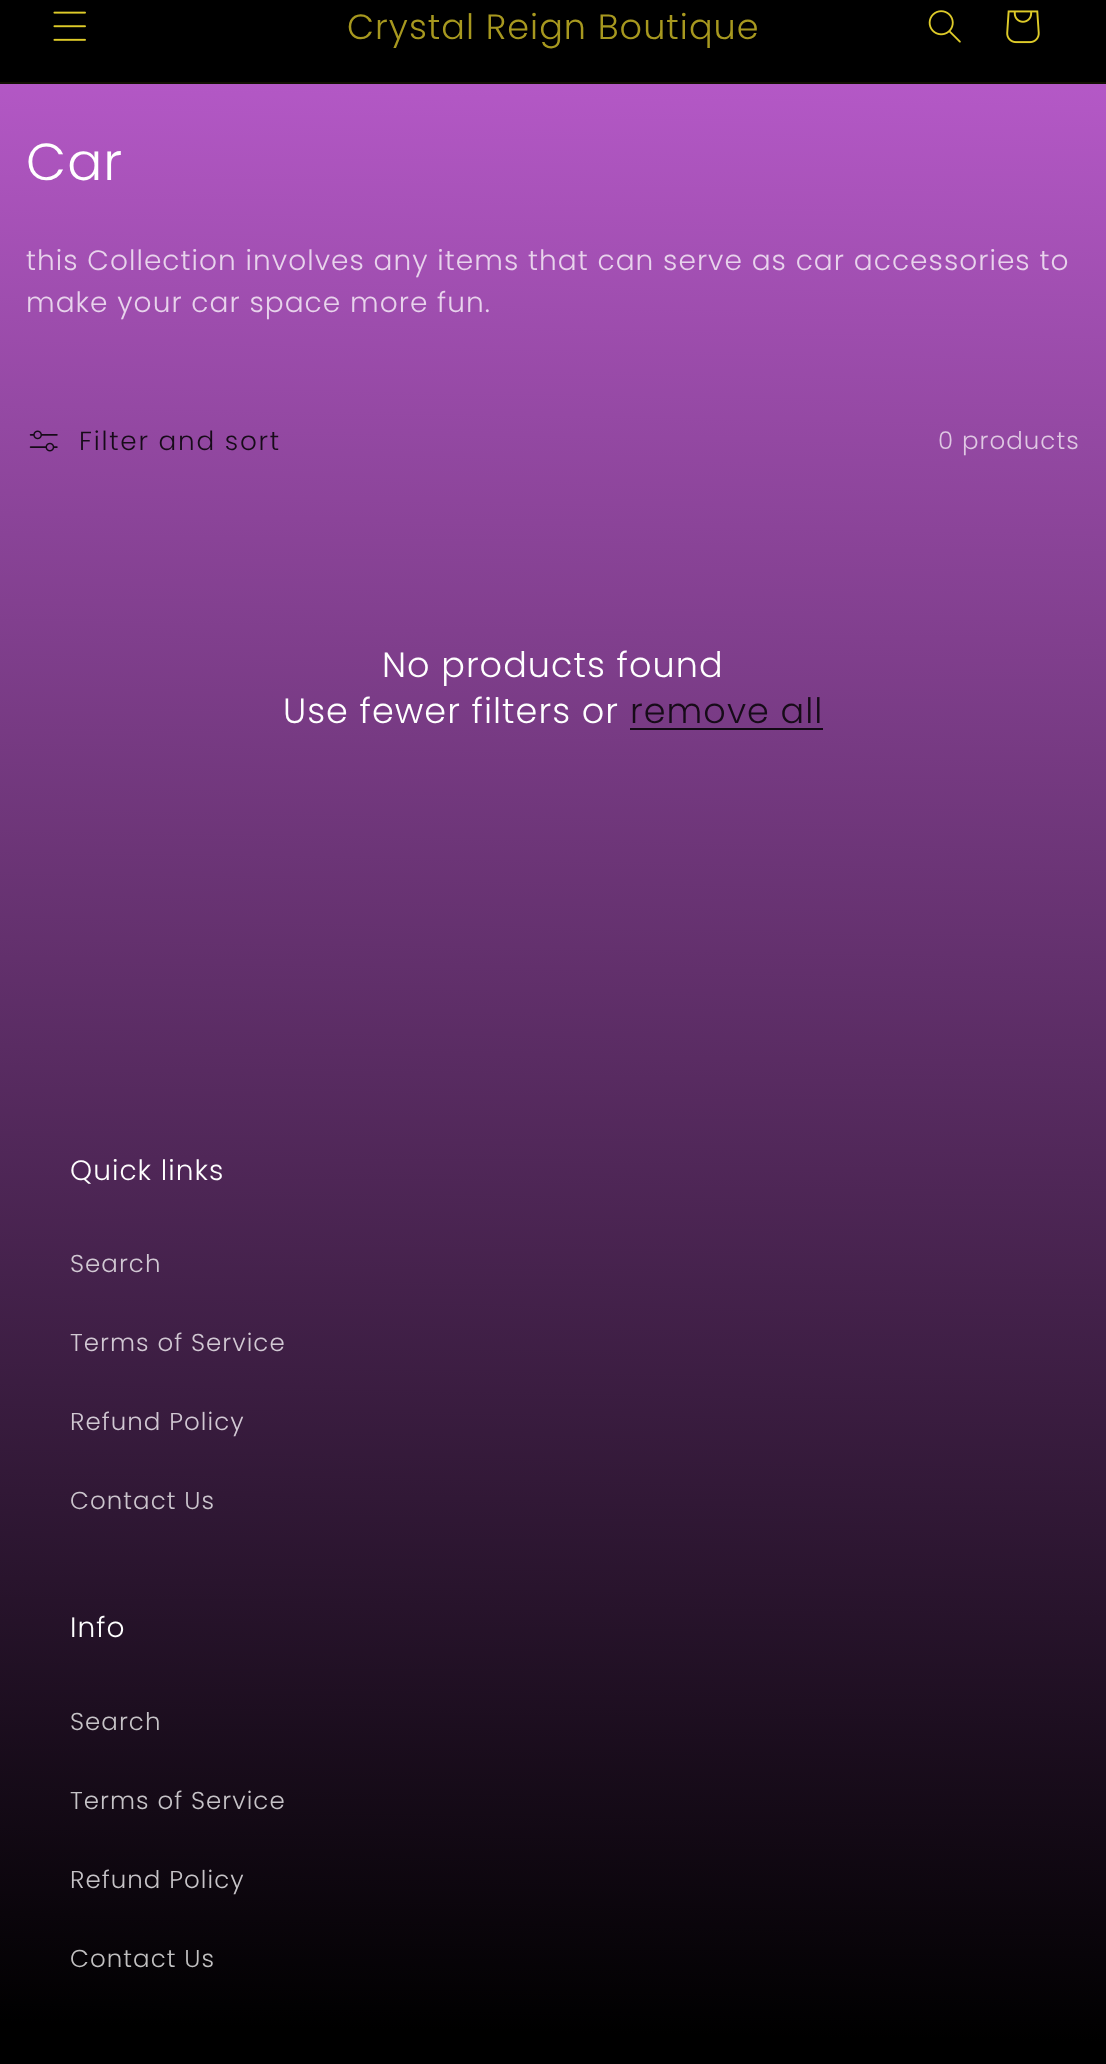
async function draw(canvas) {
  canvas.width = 1106
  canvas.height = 2064
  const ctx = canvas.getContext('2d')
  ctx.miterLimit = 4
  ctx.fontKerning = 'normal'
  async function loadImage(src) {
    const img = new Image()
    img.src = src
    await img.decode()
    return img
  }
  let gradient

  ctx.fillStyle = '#fff'
  ctx.fillRect(0, 0, 1106, 2064)
  gradient = ctx.createLinearGradient(571, -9, 535, 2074)
  gradient.addColorStop(0, '#bc5ccf')
  gradient.addColorStop(0.98, '#000')
  ctx.fillStyle = gradient
  ctx.fillRect(0, 84, 1106, 1980)
  ctx.fillStyle = '#000'
  ctx.fillRect(0, 0, 1106, 82)
  ctx.fillStyle = '#121003'
  ctx.fillRect(0, 82, 1106, 2)
  ctx.drawImage(await loadImage('image0.png'), 53, 11, 33, 30)
  ctx.letterSpacing = '1.05px'
  ctx.font = '300 35px Poppins'
  ctx.fillStyle = '#a7981f'
  ctx.fillText('Crystal Reign Boutique', 347, 39)
  ctx.drawImage(await loadImage('image1.png'), 928, 10, 33, 33)
  ctx.drawImage(await loadImage('image2.png'), 1006, 10, 34, 34)
  ctx.font = '300 52px Poppins'
  ctx.fillStyle = '#fff'
  ctx.fillText('Car', 26, 180)
  ctx.font = '300 28px Poppins'
  ctx.fillStyle = '#e8d3ec'
  ctx.fillText('this Collection involves any items that can serve as car accessories to', 26, 270)
  ctx.fillText('make your car space more fun.', 26, 312)
  ctx.drawImage(await loadImage('image3.png'), 29, 430, 29, 22)
  ctx.letterSpacing = '1.75px'
  ctx.font = '300 26.25px Poppins'
  ctx.fillStyle = '#160b18'
  ctx.fillText('Filter and sort', 79, 450)
  ctx.letterSpacing = '1.05px'
  ctx.font = '300 24.5px Poppins'
  ctx.fillStyle = '#dfc8e3'
  ctx.fillText('0 products', 938, 449)
  ctx.font = '300 35px Poppins'
  ctx.fillStyle = '#fff'
  ctx.fillText('No products found', 382, 677)
  ctx.fillText('Use fewer filters or', 283, 723)
  ctx.fillStyle = '#160b18'
  ctx.fillText('remove all', 630, 723)
  ctx.fillStyle = '#120914'
  ctx.fillRect(630, 728, 193, 2)
  ctx.font = '300 28px Poppins'
  ctx.fillStyle = '#fff'
  ctx.fillText('Quick links', 70, 1180)
  ctx.font = '300 24.5px Poppins'
  ctx.fillStyle = '#d1c8d3'
  ctx.fillText('Search', 70, 1272)
  ctx.fillText('Terms of Service', 70, 1351)
  ctx.fillText('Refund Policy', 70, 1430)
  ctx.fillStyle = '#cbc5cd'
  ctx.fillText('Contact Us', 70, 1509)
  ctx.font = '300 28px Poppins'
  ctx.fillStyle = '#fff'
  ctx.fillText('Info', 70, 1637)
  ctx.font = '300 24.5px Poppins'
  ctx.fillStyle = '#c6c3c7'
  ctx.fillText('Search', 70, 1730)
  ctx.fillText('Terms of Service', 70, 1809)
  ctx.fillText('Refund Policy', 70, 1888)
  ctx.fillStyle = '#c1c0c1'
  ctx.fillText('Contact Us', 70, 1967)
}

draw(document.querySelector('canvas'))
